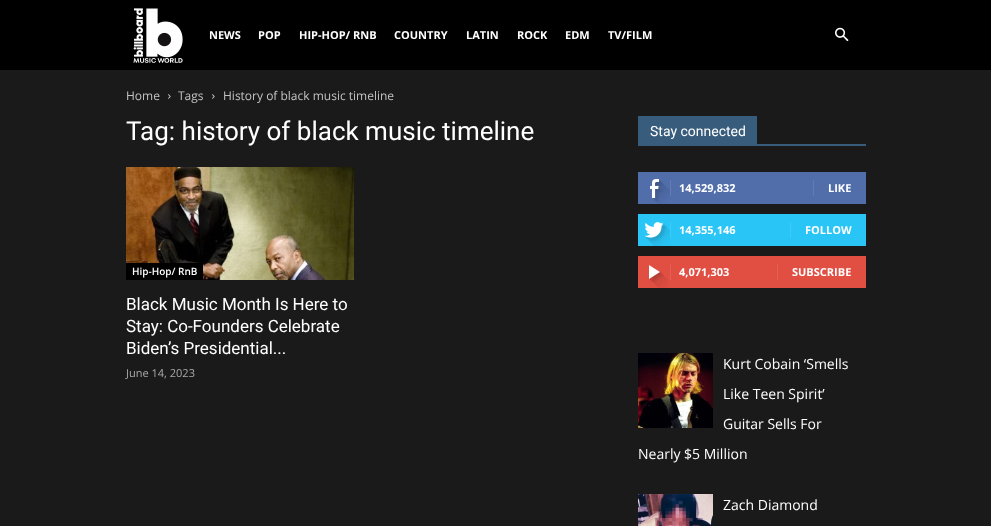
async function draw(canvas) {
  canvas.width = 991
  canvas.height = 526
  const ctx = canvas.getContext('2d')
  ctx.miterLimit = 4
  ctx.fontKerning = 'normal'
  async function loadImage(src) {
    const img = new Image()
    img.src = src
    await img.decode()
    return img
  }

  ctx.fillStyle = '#1a1a1a'
  ctx.fillRect(0, 0, 991, 526)
  ctx.fillStyle = '#000'
  ctx.fillRect(0, 0, 991, 70)
  ctx.drawImage(await loadImage('image0.png'), 133, 8, 50, 55)
  ctx.font = 'bold 11px Open Sans'
  ctx.fillStyle = '#fff'
  ctx.fillText('NEWS', 209, 39)
  ctx.fillText('POP', 258, 39)
  ctx.fillText('HIP-HOP/ RNB', 299, 39)
  ctx.fillText('COUNTRY', 394, 39)
  ctx.fillText('LATIN', 466, 39)
  ctx.fillText('ROCK', 517, 39)
  ctx.fillText('EDM', 565, 39)
  ctx.fillText('TV/FILM', 608, 39)
  ctx.drawImage(await loadImage('image1.png'), 835, 27, 14, 15)
  ctx.font = '12px Open Sans'
  ctx.fillStyle = '#c3c3c3'
  ctx.fillText('Home', 126, 100)
  ctx.drawImage(await loadImage('image2.png'), 168, 94, 3, 5)
  ctx.fillText('Tags', 178, 100)
  ctx.drawImage(await loadImage('image2.png'), 212, 94, 3, 5)
  ctx.fillText('History of black music timeline', 223, 100)
  ctx.font = '26px Roboto'
  ctx.fillStyle = '#fff'
  ctx.fillText('Tag: history of black music timeline', 126, 140)
  ctx.drawImage(await loadImage('image3.png'), 126, 167, 228, 113)
  ctx.fillStyle = '#000'
  ctx.fillRect(126, 263, 77, 17)
  ctx.font = '600 10px Open Sans'
  ctx.fillStyle = '#fff'
  ctx.fillText('Hip-Hop/ RnB', 132, 275)
  ctx.font = '17px Roboto'
  ctx.fillText('Black Music Month Is Here to', 126, 310)
  ctx.fillText('Stay: Co-Founders Celebrate', 126, 332)
  ctx.fillText('Biden’s Presidential...', 126, 354)
  ctx.font = '11px Open Sans'
  ctx.fillStyle = '#aaa'
  ctx.fillText('June 14, 2023', 126, 377)
  ctx.fillStyle = '#385c7b'
  ctx.fillRect(638, 144, 228, 2)
  ctx.fillRect(638, 116, 119, 28)
  ctx.font = '14px Roboto'
  ctx.fillStyle = '#fff'
  ctx.fillText('Stay connected', 650, 136)
  ctx.fillStyle = '#516eab'
  ctx.fillRect(638, 172, 228, 32)
  ctx.drawImage(await loadImage('image4.png'), 650, 179, 20, 25)
  ctx.fillStyle = '#627db3'
  ctx.fillRect(670, 180, 1, 16)
  ctx.font = 'bold 11px Open Sans'
  ctx.fillStyle = '#fff'
  ctx.fillText('14,529,832', 679, 192)
  ctx.fillStyle = '#627db3'
  ctx.fillRect(813, 180, 1, 16)
  ctx.fillStyle = '#fff'
  ctx.fillText('LIKE', 828, 192)
  ctx.fillStyle = '#29c5f6'
  ctx.fillRect(638, 214, 228, 32)
  ctx.drawImage(await loadImage('image5.png'), 644, 222, 26, 24)
  ctx.fillStyle = '#3ecbf7'
  ctx.fillRect(670, 222, 1, 16)
  ctx.fillStyle = '#fff'
  ctx.fillText('14,355,146', 679, 234)
  ctx.fillStyle = '#3ecbf7'
  ctx.fillRect(790, 222, 1, 16)
  ctx.fillStyle = '#fff'
  ctx.fillText('FOLLOW', 805, 234)
  ctx.fillStyle = '#e14e42'
  ctx.fillRect(638, 256, 228, 32)
  ctx.drawImage(await loadImage('image6.png'), 649, 265, 20, 23)
  ctx.fillStyle = '#e46055'
  ctx.fillRect(670, 264, 1, 16)
  ctx.fillStyle = '#fff'
  ctx.fillText('4,071,303', 679, 276)
  ctx.fillStyle = '#e46055'
  ctx.fillRect(777, 264, 1, 16)
  ctx.fillStyle = '#fff'
  ctx.fillText('SUBSCRIBE', 792, 276)
  ctx.drawImage(await loadImage('image7.png'), 638, 353, 75, 75)
  ctx.font = '14px Open Sans'
  ctx.fillText('Kurt Cobain ‘Smells', 723, 369)
  ctx.fillText('Like Teen Spirit’', 723, 399)
  ctx.fillText('Guitar Sells For', 723, 429)
  ctx.fillText('Nearly $5 Million', 638, 459)
  ctx.drawImage(await loadImage('image8.png'), 638, 494, 75, 32)
  ctx.fillText('Zach Diamond', 723, 510)
}

draw(document.querySelector('canvas'))
